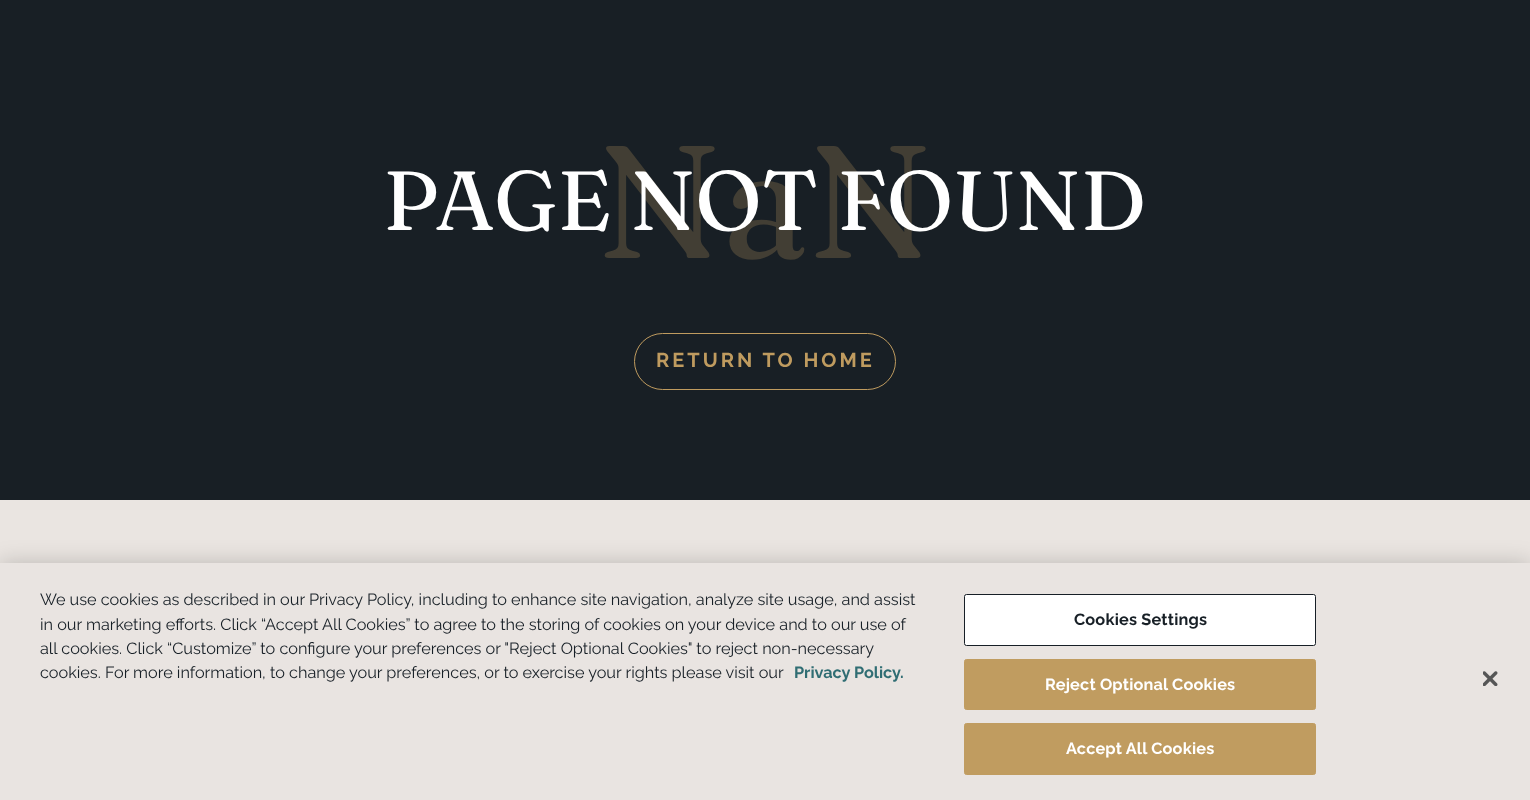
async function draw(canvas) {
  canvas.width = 1530
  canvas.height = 800
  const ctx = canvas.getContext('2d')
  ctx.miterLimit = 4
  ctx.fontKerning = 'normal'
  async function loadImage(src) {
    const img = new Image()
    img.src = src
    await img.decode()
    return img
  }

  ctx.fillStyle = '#181f25'
  ctx.fillRect(0, 0, 1530, 800)
  ctx.font = '160px Fraunces'
  ctx.fillStyle = '#423e34'
  ctx.fillText('NaN', 597, 258)
  ctx.font = '83.75px Fraunces'
  ctx.fillStyle = '#fff'
  ctx.fillText('PAGE NOT FOUND', 383, 230)
  ctx.beginPath()
  ctx.roundRect(634.5, 333.5, 261, 56, 28)
  ctx.strokeStyle = '#bf9b5f'
  ctx.stroke()
  ctx.letterSpacing = '3px'
  ctx.font = 'bold 20px Raleway'
  ctx.fillStyle = '#bf9b5f'
  ctx.fillText('RETURN TO HOME', 656, 367)
  ctx.fillStyle = '#eae5e1'
  ctx.fillRect(0, 500, 1530, 63)
  ctx.fillStyle = '#00000033'
  ctx.filter = 'blur(11px)'
  ctx.beginPath()
  ctx.rect(0, 563, 1530, 237)
  ctx.fill()
  ctx.filter = 'none'
  ctx.fillStyle = '#e9e4e1'
  ctx.fillRect(0, 563, 1530, 237)
  ctx.letterSpacing = '0px'
  ctx.font = '16.25px Raleway'
  ctx.fillStyle = '#171f26'
  ctx.fillText('We use cookies as described in our Privacy Policy, including to enhance site navigation, analyze site usage, and assist', 40, 605)
  ctx.fillText('in our marketing efforts. Click “Accept All Cookies” to agree to the storing of cookies on your device and to our use of', 40, 630)
  ctx.fillText('all cookies. Click “Customize” to configure your preferences or "Reject Optional Cookies" to reject non-necessary', 40, 654)
  ctx.fillText('cookies. For more information, to change your preferences, or to exercise your rights please visit our', 40, 678)
  ctx.font = 'bold 16.25px Raleway'
  ctx.fillStyle = '#306d73'
  ctx.fillText('Privacy Policy.', 794, 678)
  ctx.fillStyle = '#fff'
  ctx.beginPath()
  ctx.roundRect(964.5, 594.5, 351, 51, 2)
  ctx.fill()
  ctx.strokeStyle = '#171f26'
  ctx.stroke()
  ctx.letterSpacing = '0.2px'
  ctx.fillStyle = '#171f26'
  ctx.fillText('Cookies Settings', 1074, 625)
  ctx.fillStyle = '#c09c60'
  ctx.beginPath()
  ctx.roundRect(964.5, 659.5, 351, 50, 2)
  ctx.fill()
  ctx.strokeStyle = '#c09c60'
  ctx.stroke()
  ctx.fillStyle = '#fff'
  ctx.fillText('Reject Optional Cookies', 1045, 690)
  ctx.fillStyle = '#c09c60'
  ctx.beginPath()
  ctx.roundRect(964.5, 723.5, 351, 51, 2)
  ctx.fill()
  ctx.stroke()
  ctx.fillStyle = '#fff'
  ctx.fillText('Accept All Cookies', 1066, 754)
  ctx.drawImage(await loadImage('image0.png'), 1483, 671, 15, 15)
}

draw(document.querySelector('canvas'))
